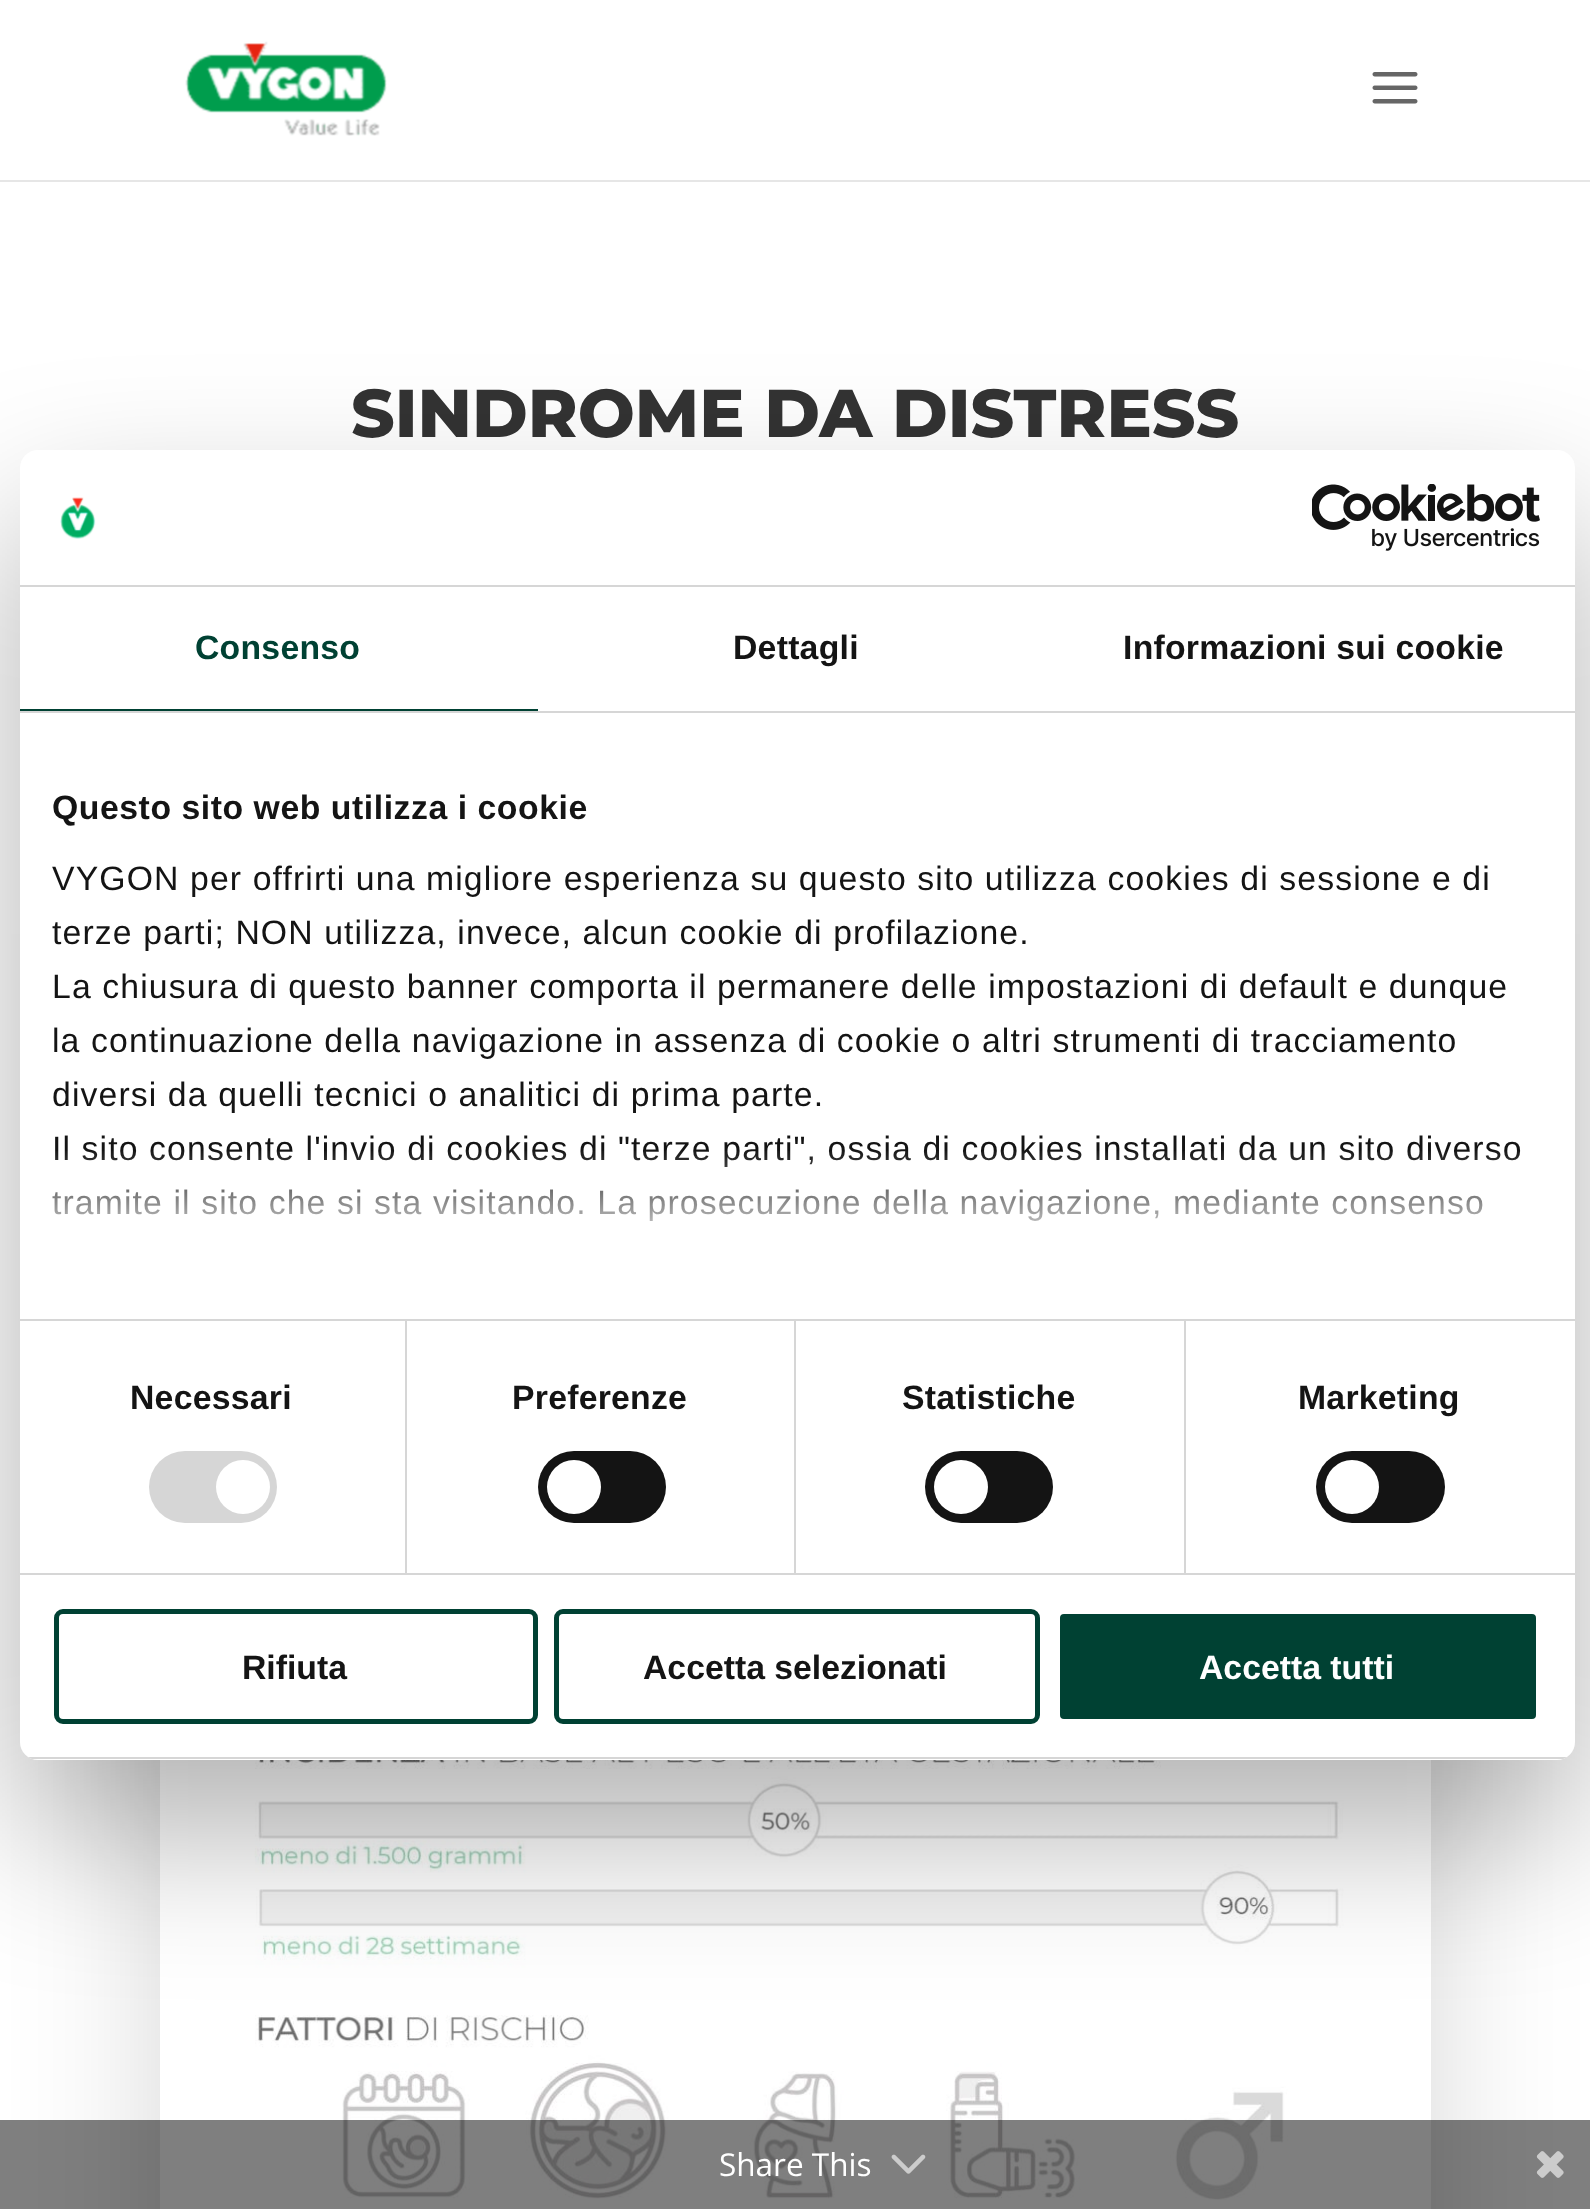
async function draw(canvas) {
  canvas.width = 1590
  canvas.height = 2209
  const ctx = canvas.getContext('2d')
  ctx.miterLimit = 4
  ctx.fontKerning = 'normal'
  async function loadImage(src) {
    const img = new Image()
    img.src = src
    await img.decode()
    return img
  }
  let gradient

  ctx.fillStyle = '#fff'
  ctx.fillRect(0, 0, 1590, 2209)
  ctx.fillStyle = '#e6e6e6'
  ctx.beginPath()
  ctx.moveTo(0, 180)
  ctx.lineTo(0, 182)
  ctx.lineTo(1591, 182)
  ctx.lineTo(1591, 2)
  ctx.lineTo(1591, 180)
  ctx.closePath()
  ctx.fill()
  ctx.drawImage(await loadImage('image0.png'), 185, 41, 202, 95)
  ctx.drawImage(await loadImage('image1.png'), 1372, 72, 46, 32)
  ctx.font = '100 67.5px Montserrat'
  ctx.fillStyle = '#333'
  ctx.fillText('SINDROME DA DISTRESS', 351, 437)
  ctx.save()
  ctx.beginPath()
  ctx.moveTo(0, 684)
  ctx.lineTo(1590, 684)
  ctx.lineTo(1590, 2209)
  ctx.lineTo(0, 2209)
  ctx.closePath()
  ctx.moveTo(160, 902)
  ctx.lineTo(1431, 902)
  ctx.lineTo(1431, 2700)
  ctx.lineTo(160, 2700)
  ctx.closePath()
  ctx.clip('evenodd')
  ctx.fillStyle = '#00000038'
  ctx.filter = 'blur(83px)'
  ctx.beginPath()
  ctx.rect(187, 934, 1217, 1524)
  ctx.fill()
  ctx.filter = 'none'
  ctx.restore()
  ctx.drawImage(await loadImage('image2.png'), 247, 1760, 1136, 440)
  ctx.fillStyle = '#0000004d'
  ctx.filter = 'blur(76.5px)'
  ctx.beginPath()
  ctx.roundRect(20, 522, 1555, 1310, 18)
  ctx.fill()
  ctx.filter = 'none'
  ctx.fillStyle = '#fff'
  ctx.beginPath()
  ctx.roundRect(20, 450, 1555, 1310, 18)
  ctx.fill()
  ctx.fillStyle = '#d6d6d6'
  ctx.fillRect(20, 585, 1555, 2)
  ctx.drawImage(await loadImage('image3.png'), 60, 497, 36, 42)
  ctx.drawImage(await loadImage('image4.png'), 1312, 484, 228, 67)
  ctx.fillRect(20, 711, 1555, 2)
  ctx.fillStyle = '#004133'
  ctx.fillRect(20, 709, 518, 2)
  ctx.letterSpacing = '0.25px'
  ctx.font = 'bold 33.75px Liberation Sans'
  ctx.fillText('Consenso', 195, 659)
  ctx.fillStyle = '#141414'
  ctx.fillText('Dettagli', 733, 659)
  ctx.fillText('Informazioni sui cookie', 1123, 659)
  ctx.fillStyle = '#d6d6d6'
  ctx.fillRect(20, 1319, 1555, 2)
  ctx.letterSpacing = '0.55px'
  ctx.fillStyle = '#141414'
  ctx.fillText('Questo sito web utilizza i cookie', 52, 819)
  ctx.letterSpacing = '1.12px'
  ctx.font = '33.75px Liberation Sans'
  ctx.fillText('VYGON per offrirti una migliore esperienza su questo sito utilizza cookies di sessione e di', 52, 890)
  ctx.fillText('terze parti; NON utilizza, invece, alcun cookie di profilazione.', 52, 944)
  ctx.fillText('La chiusura di questo banner comporta il permanere delle impostazioni di default e dunque', 52, 998)
  ctx.fillText('la continuazione della navigazione in assenza di cookie o altri strumenti di tracciamento', 52, 1052)
  ctx.fillText('diversi da quelli tecnici o analitici di prima parte.', 52, 1106)
  ctx.fillText('Il sito consente l\'invio di cookies di "terze parti", ossia di cookies installati da un sito diverso', 52, 1160)
  ctx.fillText('tramite il sito che si sta visitando. La prosecuzione della navigazione, mediante consenso', 52, 1214)
  gradient = ctx.createLinearGradient(782, 1318, 782, 1149)
  gradient.addColorStop(0, '#fff')
  gradient.addColorStop(0.5, '#ffffffcc')
  gradient.addColorStop(1, '#ffffff00')
  ctx.fillStyle = gradient
  ctx.fillRect(52, 1151, 1468, 70)
  ctx.fillStyle = '#d6d6d6'
  ctx.fillRect(20, 1573, 1555, 2)
  ctx.fillRect(405, 1321, 2, 252)
  ctx.letterSpacing = '0.25px'
  ctx.font = 'bold 33.75px Liberation Sans'
  ctx.fillStyle = '#141414'
  ctx.fillText('Necessari', 130, 1409)
  ctx.fillStyle = '#d6d6d6'
  ctx.beginPath()
  ctx.roundRect(149, 1451, 128, 72, 36)
  ctx.fill()
  ctx.fillStyle = '#fff'
  ctx.beginPath()
  ctx.arc(243, 1487, 27, 0, 2 * Math.PI)
  ctx.fill()
  ctx.fillStyle = '#d6d6d6'
  ctx.fillRect(794, 1321, 2, 252)
  ctx.fillStyle = '#141414'
  ctx.fillText('Preferenze', 512, 1409)
  ctx.beginPath()
  ctx.roundRect(538, 1451, 128, 72, 36)
  ctx.fill()
  ctx.fillStyle = '#fff'
  ctx.beginPath()
  ctx.arc(574, 1487, 27, 0, 2 * Math.PI)
  ctx.fill()
  ctx.fillStyle = '#d6d6d6'
  ctx.fillRect(1184, 1321, 2, 252)
  ctx.fillStyle = '#141414'
  ctx.fillText('Statistiche', 902, 1409)
  ctx.beginPath()
  ctx.roundRect(925, 1451, 128, 72, 36)
  ctx.fill()
  ctx.fillStyle = '#fff'
  ctx.beginPath()
  ctx.arc(961, 1487, 27, 0, 2 * Math.PI)
  ctx.fill()
  ctx.fillStyle = '#141414'
  ctx.fillText('Marketing', 1298, 1409)
  ctx.beginPath()
  ctx.roundRect(1316, 1451, 129, 72, 36)
  ctx.fill()
  ctx.fillStyle = '#fff'
  ctx.beginPath()
  ctx.arc(1352, 1487, 27, 0, 2 * Math.PI)
  ctx.fill()
  ctx.save()
  ctx.beginPath()
  ctx.roundRect(20, 450, 1555, 1310, 18)
  ctx.clip()
  ctx.fillStyle = '#d6d6d6'
  ctx.fillRect(20, 1757, 1555, 2)
  ctx.restore()
  ctx.beginPath()
  ctx.roundRect(56.5, 1611.5, 479, 110, 6.5)
  ctx.strokeStyle = '#004133'
  ctx.lineWidth = 5
  ctx.stroke()
  ctx.letterSpacing = '0px'
  ctx.fillStyle = '#141414'
  ctx.fillText('Rifiuta', 242, 1679)
  ctx.beginPath()
  ctx.roundRect(556.5, 1611.5, 481, 110, 6.5)
  ctx.stroke()
  ctx.fillText('Accetta selezionati', 643, 1679)
  ctx.fillStyle = '#004133'
  ctx.beginPath()
  ctx.roundRect(1057.5, 1611.5, 481, 110, 6.5)
  ctx.fill()
  ctx.strokeStyle = '#fff'
  ctx.stroke()
  ctx.fillStyle = '#fff'
  ctx.fillText('Accetta tutti', 1199, 1679)
  ctx.fillStyle = '#00000080'
  ctx.fillRect(0, 2120, 1590, 89)
  ctx.font = '31.5px Open Sans'
  ctx.fillStyle = '#fff'
  ctx.fillText('Share This', 719, 2176)
  ctx.drawImage(await loadImage('image5.png'), 891, 2154, 35, 20)
  ctx.drawImage(await loadImage('image6.png'), 1536, 2151, 28, 27)
}

draw(document.querySelector('canvas'))
